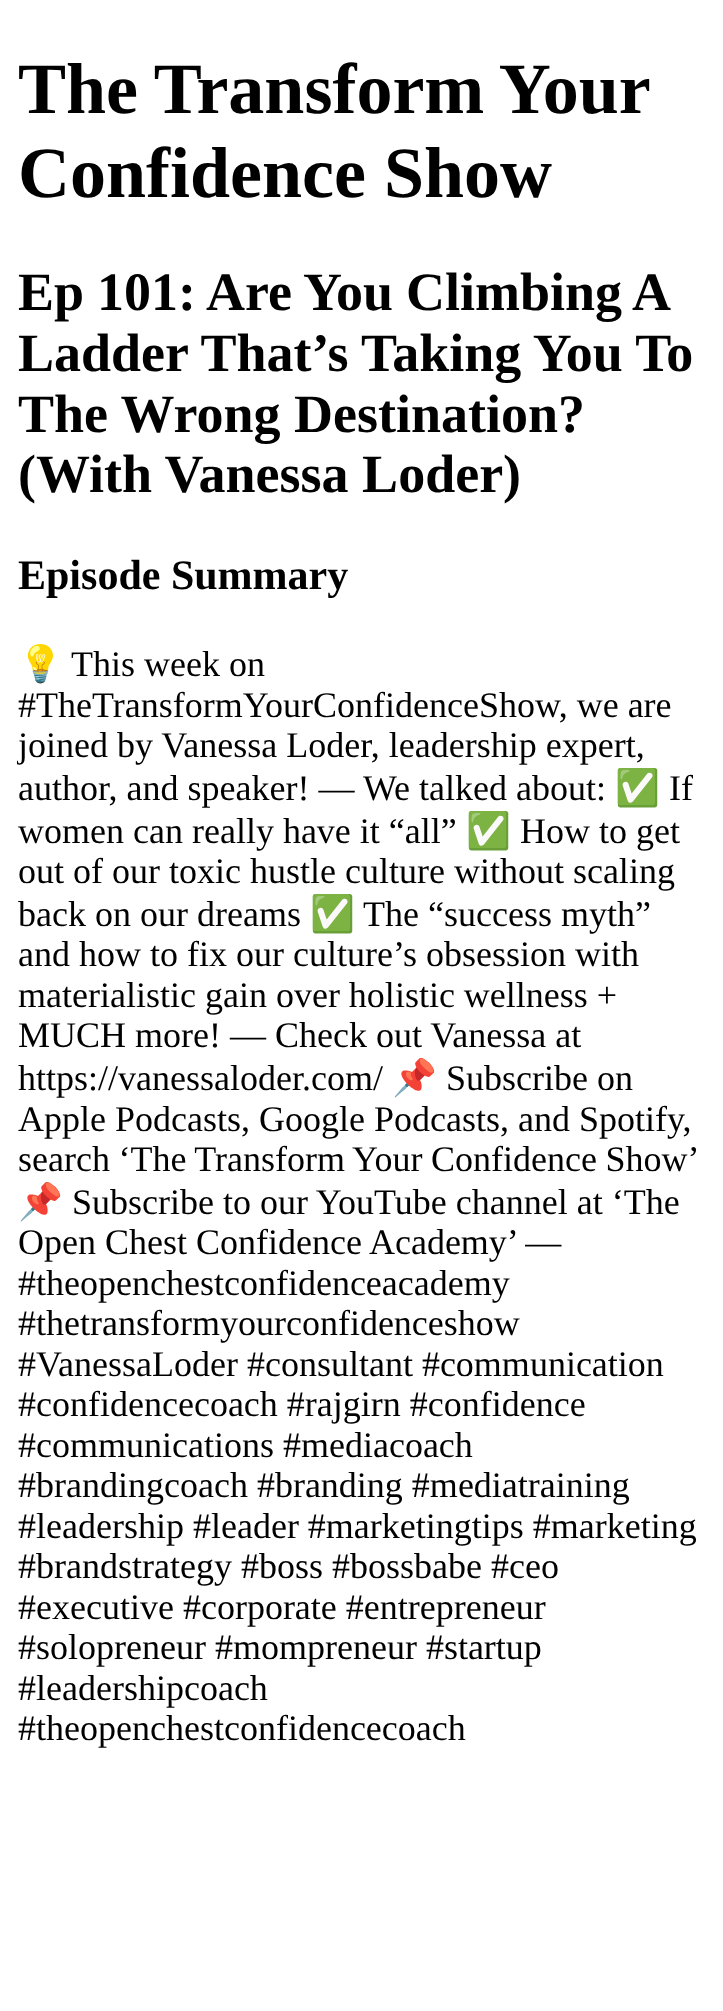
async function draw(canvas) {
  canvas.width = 723
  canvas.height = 2011
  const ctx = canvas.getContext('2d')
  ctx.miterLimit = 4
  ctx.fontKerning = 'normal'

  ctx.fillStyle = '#fff'
  ctx.fillRect(0, 0, 723, 2011)
  ctx.wordSpacing = '-1px'
  ctx.font = 'bold 72px Liberation Serif'
  ctx.fillStyle = '#000'
  ctx.fillText('The Transform Your', 18, 113)
  ctx.wordSpacing = '0px'
  ctx.fillText('Confidence Show', 18, 197)
  ctx.wordSpacing = '-0.5px'
  ctx.font = 'bold 54px Liberation Serif'
  ctx.fillText('Ep 101: Are You Climbing A', 18, 310)
  ctx.wordSpacing = '0px'
  ctx.fillText('Ladder That’s Taking You To', 18, 371)
  ctx.fillText('The Wrong Destination?', 18, 432)
  ctx.fillText('(With Vanessa Loder)', 18, 492)
  ctx.font = 'bold 42px Liberation Serif'
  ctx.fillText('Episode Summary', 18, 589)
  ctx.font = '36px Noto Color Emoji'
  ctx.fillText('💡', 18, 676)
  ctx.font = '36px Liberation Serif'
  ctx.fillText('This week on', 71, 676)
  ctx.fillText('#TheTransformYourConfidenceShow, we are', 18, 717)
  ctx.fillText('joined by Vanessa Loder, leadership expert,', 18, 757)
  ctx.fillText('author, and speaker! —', 18, 800)
  ctx.fillText('We talked about:', 363, 800)
  ctx.font = '36px Noto Color Emoji'
  ctx.fillText('✅', 615, 800)
  ctx.font = '36px Liberation Serif'
  ctx.fillText('If', 669, 800)
  ctx.fillText('women can really have it “all”', 18, 843)
  ctx.font = '36px Noto Color Emoji'
  ctx.fillText('✅', 466, 843)
  ctx.font = '36px Liberation Serif'
  ctx.fillText('How to get', 520, 843)
  ctx.fillText('out of our toxic hustle culture without scaling', 18, 883)
  ctx.fillText('back on our dreams', 18, 926)
  ctx.font = '36px Noto Color Emoji'
  ctx.fillText('✅', 310, 926)
  ctx.font = '36px Liberation Serif'
  ctx.fillText('The “success myth”', 363, 926)
  ctx.fillText('and how to fix our culture’s obsession with', 18, 966)
  ctx.fillText('materialistic gain over holistic wellness +', 18, 1007)
  ctx.fillText('MUCH more! — Check out Vanessa at', 18, 1047)
  ctx.fillText('https://vanessaloder.com/', 18, 1090)
  ctx.font = '36px Noto Color Emoji'
  ctx.fillText('📌', 392, 1090)
  ctx.font = '36px Liberation Serif'
  ctx.fillText('Subscribe on', 446, 1090)
  ctx.fillText('Apple Podcasts, Google Podcasts, and Spotify,', 18, 1131)
  ctx.wordSpacing = '-0.5px'
  ctx.fillText('search ‘The Transform Your Confidence Show’', 18, 1171)
  ctx.wordSpacing = '0px'
  ctx.font = '36px Noto Color Emoji'
  ctx.fillText('📌', 18, 1214)
  ctx.font = '36px Liberation Serif'
  ctx.fillText('Subscribe to our YouTube channel at ‘The', 72, 1214)
  ctx.fillText('Open Chest Confidence Academy’ —', 18, 1254)
  ctx.fillText('#theopenchestconfidenceacademy', 18, 1295)
  ctx.fillText('#thetransformyourconfidenceshow', 18, 1335)
  ctx.fillText('#VanessaLoder #consultant #communication', 18, 1376)
  ctx.fillText('#confidencecoach #rajgirn #confidence', 18, 1416)
  ctx.fillText('#communications #mediacoach', 18, 1457)
  ctx.fillText('#brandingcoach #branding #mediatraining', 18, 1497)
  ctx.fillText('#leadership #leader #marketingtips #marketing', 18, 1538)
  ctx.fillText('#brandstrategy #boss #bossbabe #ceo', 18, 1578)
  ctx.fillText('#executive #corporate #entrepreneur', 18, 1619)
  ctx.fillText('#solopreneur #mompreneur #startup', 18, 1659)
  ctx.fillText('#leadershipcoach', 18, 1700)
  ctx.fillText('#theopenchestconfidencecoach', 18, 1740)
}

draw(document.querySelector('canvas'))
